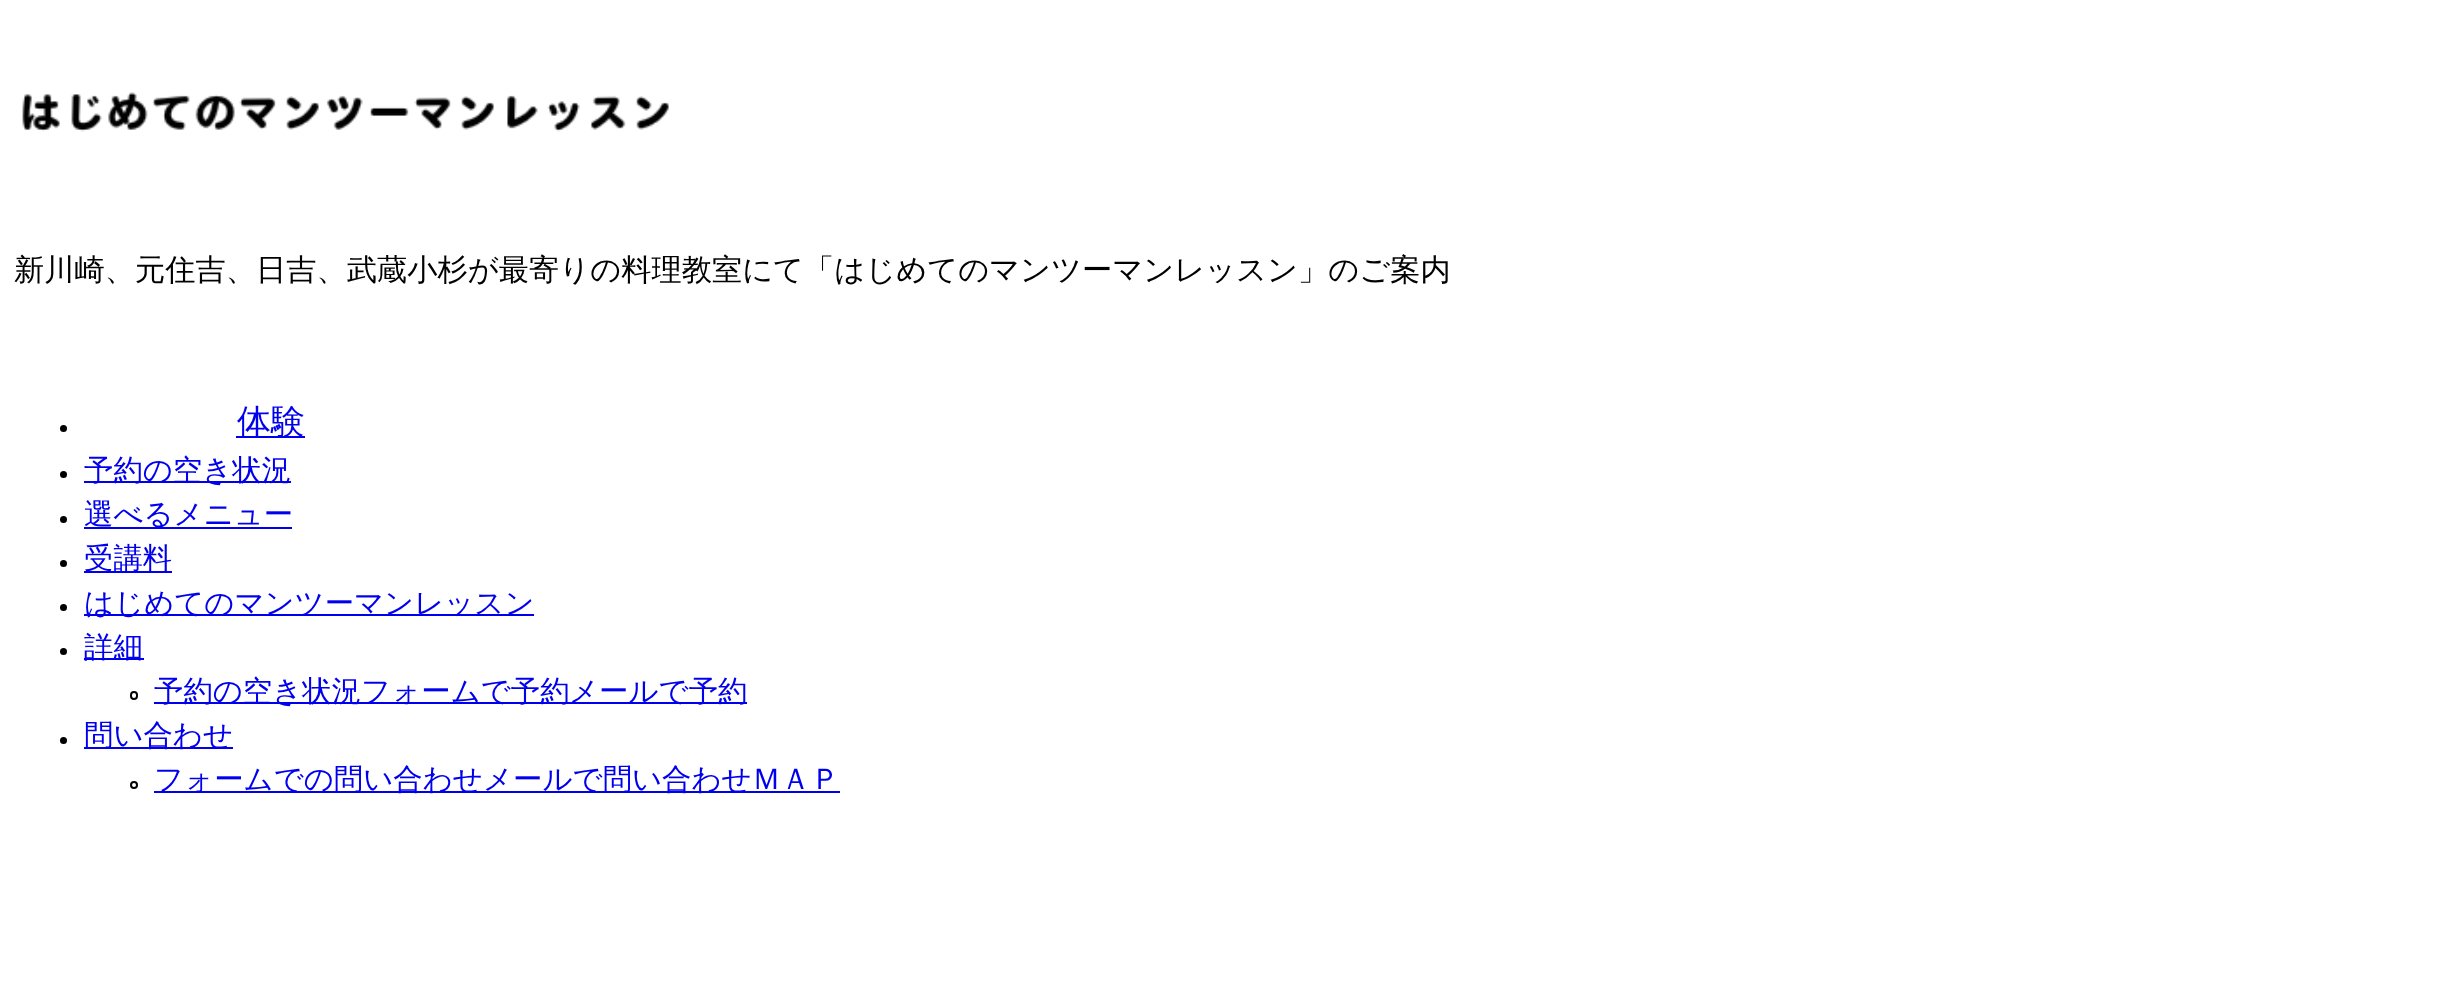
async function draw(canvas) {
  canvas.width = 2455
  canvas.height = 1006
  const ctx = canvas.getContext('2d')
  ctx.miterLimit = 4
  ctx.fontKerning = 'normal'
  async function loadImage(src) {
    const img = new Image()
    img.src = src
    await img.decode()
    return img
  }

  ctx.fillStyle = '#fff'
  ctx.fillRect(0, 0, 2455, 1006)
  ctx.drawImage(await loadImage('image0.png'), 22, 92, 647, 40)
  ctx.font = '500 30.25px WenQuanYi Zen Hei'
  ctx.fillStyle = '#000'
  ctx.fillText('新川崎、元住吉、日吉、武蔵小杉が最寄りの料理教室にて「はじめてのマンツーマンレッスン」のご案内', 14, 280)
  ctx.beginPath()
  ctx.arc(63.5, 428.5, 3.5, 0, 2 * Math.PI)
  ctx.fill()
  ctx.fillStyle = '#00e'
  ctx.fillRect(236, 436, 69, 2)
  ctx.font = '500 34px WenQuanYi Zen Hei'
  ctx.fillText('体験', 237, 433)
  ctx.fillStyle = '#000'
  ctx.beginPath()
  ctx.arc(63.5, 474.5, 3.5, 0, 2 * Math.PI)
  ctx.fill()
  ctx.fillStyle = '#00e'
  ctx.fillRect(84, 481, 207, 2)
  ctx.font = '500 29.4px WenQuanYi Zen Hei'
  ctx.fillText('予約の空き状況', 84, 480)
  ctx.fillStyle = '#000'
  ctx.beginPath()
  ctx.arc(63.5, 519.5, 3.5, 0, 2 * Math.PI)
  ctx.fill()
  ctx.fillStyle = '#00e'
  ctx.fillRect(84, 527, 208, 2)
  ctx.fillText('選べるメニュー', 84, 524)
  ctx.fillStyle = '#000'
  ctx.beginPath()
  ctx.arc(63.5, 563.5, 3.5, 0, 2 * Math.PI)
  ctx.fill()
  ctx.fillStyle = '#00e'
  ctx.fillRect(84, 571, 88, 2)
  ctx.fillText('受講料', 84, 568)
  ctx.fillStyle = '#000'
  ctx.beginPath()
  ctx.arc(63.5, 607.5, 3.5, 0, 2 * Math.PI)
  ctx.fill()
  ctx.fillStyle = '#00e'
  ctx.fillRect(84, 614, 450, 2)
  ctx.fillText('はじめてのマンツーマンレッスン', 84, 613)
  ctx.fillStyle = '#000'
  ctx.beginPath()
  ctx.arc(63.5, 651.5, 3.5, 0, 2 * Math.PI)
  ctx.fill()
  ctx.fillStyle = '#00e'
  ctx.fillRect(84, 658, 60, 2)
  ctx.fillText('詳細', 84, 657)
  ctx.beginPath()
  ctx.roundRect(131, 692, 6, 7, 3)
  ctx.strokeStyle = '#000'
  ctx.lineWidth = 2
  ctx.stroke()
  ctx.fillRect(154, 702, 593, 2)
  ctx.fillText('予約の空き状況フォームで予約', 154, 701)
  ctx.fillText('メールで予約', 569, 701)
  ctx.fillStyle = '#000'
  ctx.beginPath()
  ctx.arc(63.5, 740.5, 3.5, 0, 2 * Math.PI)
  ctx.fill()
  ctx.fillStyle = '#00e'
  ctx.fillRect(84, 747, 149, 2)
  ctx.fillText('問い合わせ', 84, 745)
  ctx.beginPath()
  ctx.arc(134, 785, 3, 0, 2 * Math.PI)
  ctx.stroke()
  ctx.fillRect(154, 791, 686, 2)
  ctx.fillText('フォームでの問い合わせ', 154, 789)
  ctx.fillText('メールで問い合わせＭＡＰ', 483, 789)
}

draw(document.querySelector('canvas'))
